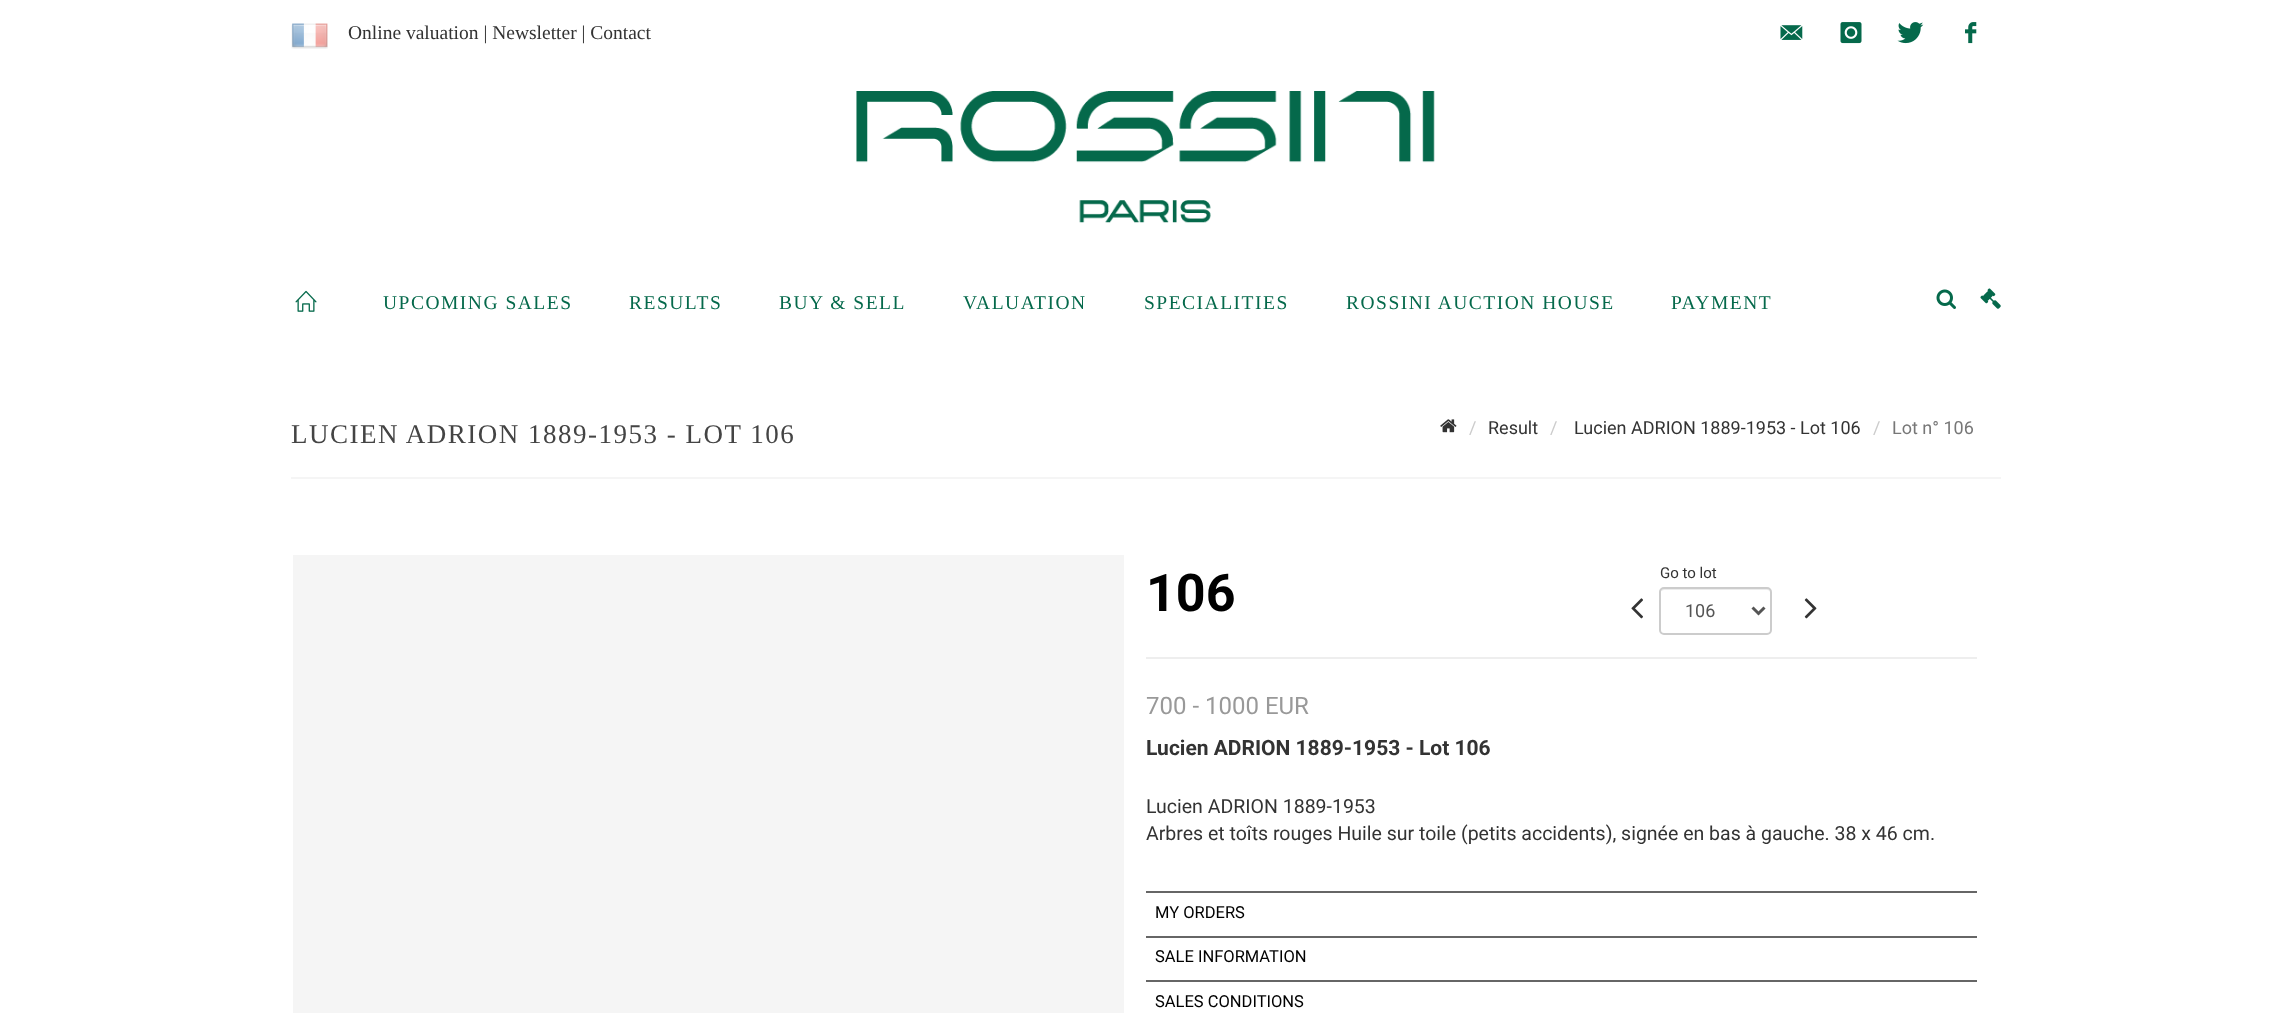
async function draw(canvas) {
  canvas.width = 2292
  canvas.height = 1013
  const ctx = canvas.getContext('2d')
  ctx.miterLimit = 4
  ctx.fontKerning = 'normal'
  async function loadImage(src) {
    const img = new Image()
    img.src = src
    await img.decode()
    return img
  }

  ctx.fillStyle = '#fff'
  ctx.fillRect(0, 0, 2292, 1013)
  ctx.drawImage(await loadImage('image0.png'), 291, 23, 37, 26)
  ctx.font = '19.5px Liberation Serif'
  ctx.fillStyle = '#333'
  ctx.fillText('Online valuation | Newsletter | Contact', 348, 39)
  ctx.drawImage(await loadImage('image1.png'), 1780, 25, 23, 15)
  ctx.drawImage(await loadImage('image2.png'), 1840, 22, 22, 22)
  ctx.drawImage(await loadImage('image3.png'), 1897, 22, 27, 22)
  ctx.drawImage(await loadImage('image4.png'), 1965, 22, 12, 22)
  ctx.drawImage(await loadImage('image5.png'), 856, 91, 579, 132)
  ctx.drawImage(await loadImage('image6.png'), 295, 290, 22, 22)
  ctx.letterSpacing = '1.5px'
  ctx.fillStyle = '#05694b'
  ctx.fillText('UPCOMING SALES', 383, 309)
  ctx.fillText('RESULTS', 629, 309)
  ctx.fillText('BUY & SELL', 779, 309)
  ctx.fillText('VALUATION', 963, 309)
  ctx.fillText('SPECIALITIES', 1144, 309)
  ctx.fillText('ROSSINI AUCTION HOUSE', 1346, 309)
  ctx.fillText('PAYMENT', 1671, 309)
  ctx.drawImage(await loadImage('image7.png'), 1936, 289, 20, 20)
  ctx.drawImage(await loadImage('image8.png'), 1980, 288, 21, 21)
  ctx.fillStyle = '#f5f5f5'
  ctx.fillRect(291, 477, 1710, 2)
  ctx.font = '27px Liberation Serif'
  ctx.fillStyle = '#444'
  ctx.fillText('LUCIEN ADRION 1889-1953 - LOT 106', 291, 443)
  ctx.drawImage(await loadImage('image9.png'), 1440, 419, 17, 14)
  ctx.letterSpacing = '0px'
  ctx.font = '18px Roboto'
  ctx.fillStyle = '#ccc'
  ctx.fillText('/', 1469, 434)
  ctx.fillStyle = '#333'
  ctx.fillText('Result', 1488, 434)
  ctx.fillStyle = '#ccc'
  ctx.fillText('/', 1550, 434)
  ctx.fillStyle = '#333'
  ctx.fillText('Lucien ADRION 1889-1953 - Lot 106', 1574, 434)
  ctx.fillStyle = '#ccc'
  ctx.fillText('/', 1873, 434)
  ctx.fillStyle = '#777'
  ctx.fillText('Lot n° 106', 1892, 434)
  ctx.fillStyle = '#f5f5f5'
  ctx.fillRect(293, 555, 831, 458)
  ctx.font = 'bold 52px Roboto'
  ctx.fillStyle = '#000'
  ctx.fillText('106', 1146, 611)
  ctx.drawImage(await loadImage('image10.png'), 1631, 598, 12, 21)
  ctx.font = '15px Roboto'
  ctx.fillStyle = '#333'
  ctx.fillText('Go to lot', 1660, 578)
  ctx.fillStyle = '#ececec'
  ctx.beginPath()
  ctx.moveTo(1664, 590)
  ctx.lineTo(1767, 590)
  ctx.bezierCurveTo(1769, 590, 1770, 591, 1770, 592)
  ctx.lineTo(1770, 591)
  ctx.bezierCurveTo(1770, 589, 1769, 588, 1767, 588)
  ctx.lineTo(1664, 588)
  ctx.bezierCurveTo(1662, 588, 1661, 589, 1661, 591)
  ctx.closePath()
  ctx.fill()
  ctx.beginPath()
  ctx.roundRect(1660, 588, 111, 46, 4)
  ctx.strokeStyle = '#ccc'
  ctx.lineWidth = 2
  ctx.stroke()
  ctx.beginPath()
  ctx.moveTo(1752.5, 607.5)
  ctx.lineTo(1758.5, 613.5)
  ctx.lineTo(1764.5, 607.5)
  ctx.strokeStyle = '#555'
  ctx.lineWidth = 3
  ctx.stroke()
  ctx.font = '18px Roboto'
  ctx.fillStyle = '#555'
  ctx.fillText('106', 1685, 617)
  ctx.drawImage(await loadImage('image11.png'), 1804, 598, 13, 21)
  ctx.fillStyle = '#eee'
  ctx.fillRect(1146, 657, 831, 2)
  ctx.font = '24px Roboto'
  ctx.fillStyle = '#999'
  ctx.fillText('700 - 1000 EUR', 1146, 714)
  ctx.font = 'bold 21px Roboto'
  ctx.fillStyle = '#333'
  ctx.fillText('Lucien ADRION 1889-1953 - Lot 106', 1146, 755)
  ctx.font = '19.5px Roboto'
  ctx.fillText('Lucien ADRION 1889-1953', 1146, 813)
  ctx.fillText('Arbres et toîts rouges Huile sur toile (petits accidents), signée en bas à gauche. 38 x 46 cm.', 1146, 840)
  ctx.fillStyle = '#666'
  ctx.fillRect(1146, 891, 831, 2)
  ctx.fillRect(1146, 936, 831, 2)
  ctx.font = '16.5px Roboto'
  ctx.fillStyle = '#000'
  ctx.fillText('MY ORDERS', 1155, 918)
  ctx.fillStyle = '#666'
  ctx.fillRect(1146, 980, 831, 2)
  ctx.fillStyle = '#000'
  ctx.fillText('SALE INFORMATION', 1155, 962)
  ctx.fillText('SALES CONDITIONS', 1155, 1007)
}

draw(document.querySelector('canvas'))
